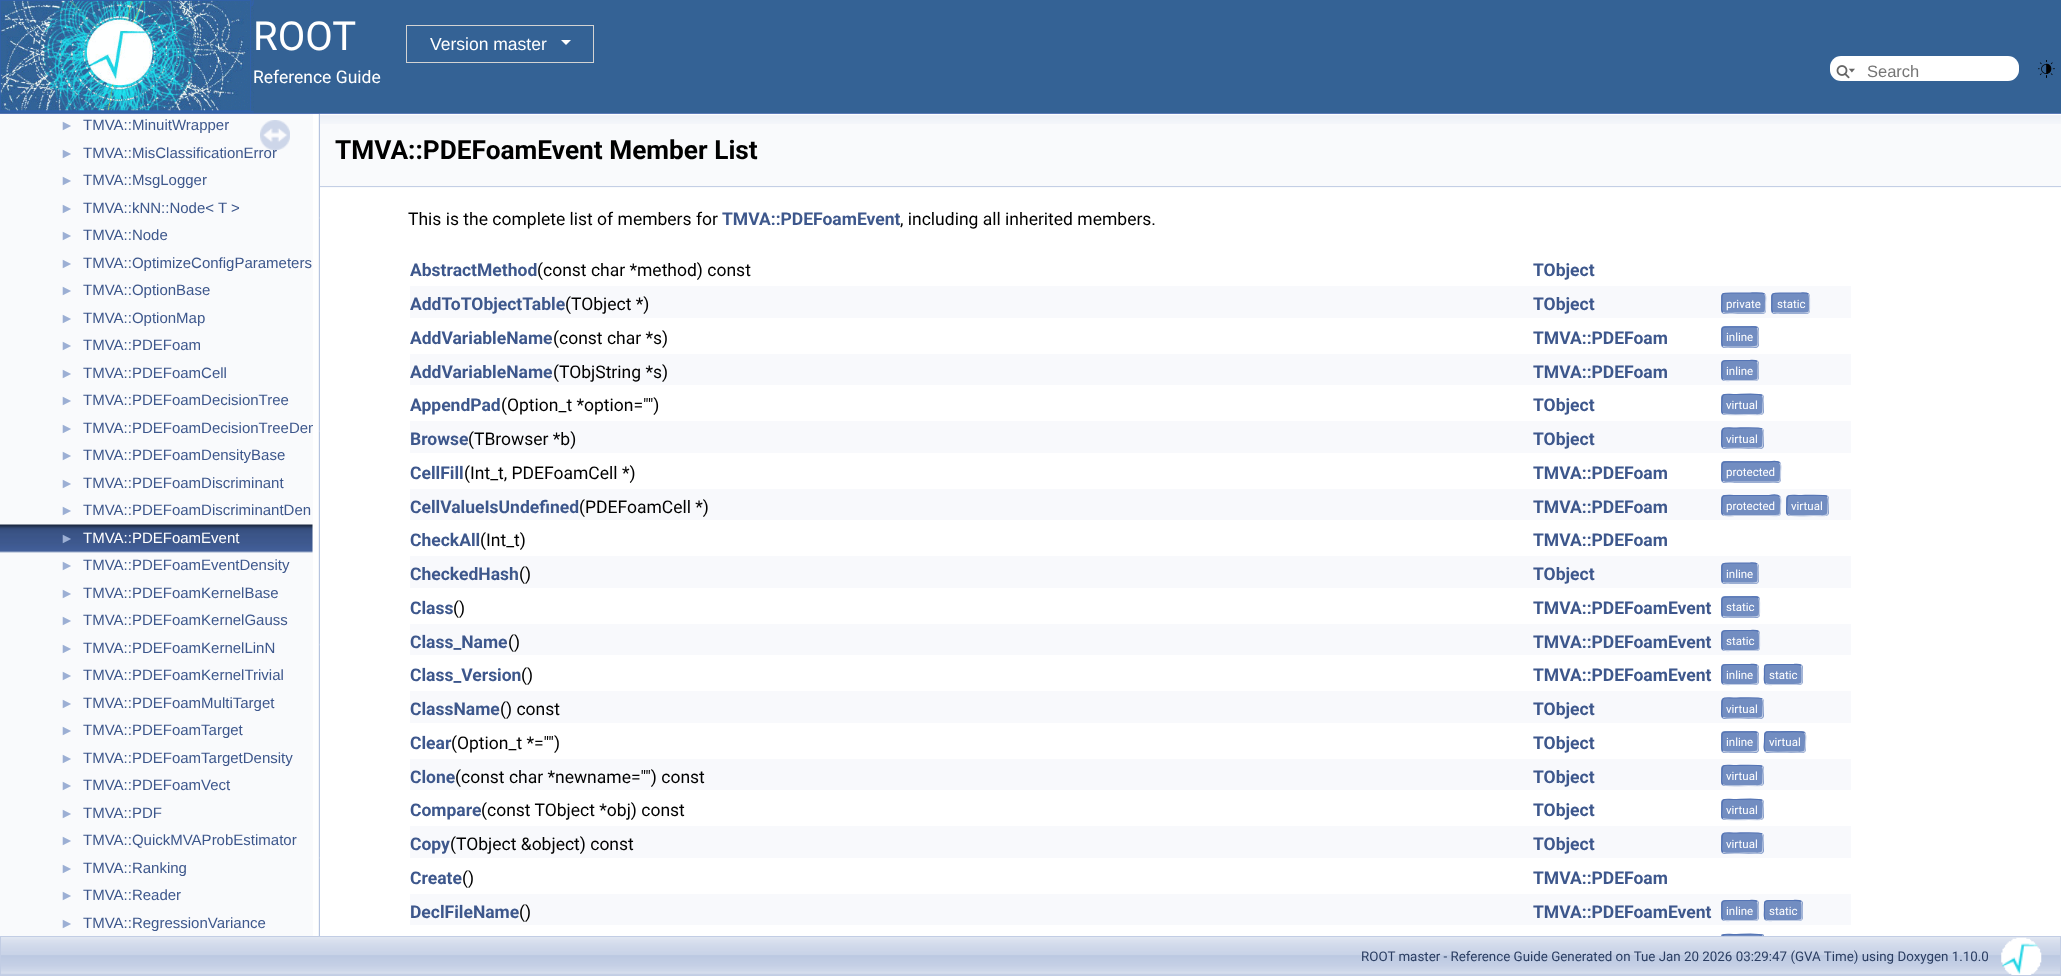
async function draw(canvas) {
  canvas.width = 2061
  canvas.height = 976
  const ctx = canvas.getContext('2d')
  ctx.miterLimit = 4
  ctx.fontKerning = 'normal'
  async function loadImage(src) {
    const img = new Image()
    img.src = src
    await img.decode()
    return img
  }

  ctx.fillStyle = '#fff'
  ctx.fillRect(0, 0, 2061, 976)
  ctx.fillStyle = '#5373b4'
  ctx.fillRect(0, 113, 2061, 1)
  ctx.fillStyle = '#346295'
  ctx.fillRect(0, 0, 2061, 113)
  ctx.drawImage(await loadImage('image0.png'), 0, 0, 254, 113)
  ctx.font = '40px Roboto'
  ctx.fillStyle = '#fff'
  ctx.fillText('ROOT', 253, 50)
  ctx.strokeStyle = '#d3d3d3'
  ctx.strokeRect(406.5, 25.5, 187, 37)
  ctx.font = '17.5px Liberation Sans'
  ctx.fillText('Version master', 430, 50)
  ctx.beginPath()
  ctx.moveTo(561, 40)
  ctx.lineTo(571, 40)
  ctx.lineTo(566, 45)
  ctx.closePath()
  ctx.fill()
  ctx.font = '17.5px Roboto'
  ctx.fillText('Reference Guide', 253, 83)
  ctx.beginPath()
  ctx.roundRect(1830, 56, 189, 25, 11)
  ctx.fill()
  ctx.drawImage(await loadImage('image1.png'), 1836, 65, 19, 14)
  ctx.font = '16.5px Liberation Sans'
  ctx.fillStyle = '#757575'
  ctx.fillText('Search', 1867, 77)
  ctx.drawImage(await loadImage('image2.png'), 2038, 60, 17, 18)
  ctx.fillStyle = '#f9fafc'
  ctx.fillRect(0, 114, 313, 822)
  ctx.font = '14px Liberation Sans'
  ctx.fillStyle = '#9cafd4'
  ctx.fillText('►', 60, 130)
  ctx.font = '15px Liberation Sans'
  ctx.fillStyle = '#3d578c'
  ctx.fillText('TMVA::MinuitWrapper', 83, 130)
  ctx.font = '14px Liberation Sans'
  ctx.fillStyle = '#9cafd4'
  ctx.fillText('►', 60, 158)
  ctx.font = '15px Liberation Sans'
  ctx.fillStyle = '#3d578c'
  ctx.fillText('TMVA::MisClassificationError', 83, 158)
  ctx.font = '14px Liberation Sans'
  ctx.fillStyle = '#9cafd4'
  ctx.fillText('►', 60, 185)
  ctx.font = '15px Liberation Sans'
  ctx.fillStyle = '#3d578c'
  ctx.fillText('TMVA::MsgLogger', 83, 185)
  ctx.font = '14px Liberation Sans'
  ctx.fillStyle = '#9cafd4'
  ctx.fillText('►', 60, 213)
  ctx.font = '15px Liberation Sans'
  ctx.fillStyle = '#3d578c'
  ctx.fillText('TMVA::kNN::Node< T >', 83, 213)
  ctx.font = '14px Liberation Sans'
  ctx.fillStyle = '#9cafd4'
  ctx.fillText('►', 60, 240)
  ctx.font = '15px Liberation Sans'
  ctx.fillStyle = '#3d578c'
  ctx.fillText('TMVA::Node', 83, 240)
  ctx.font = '14px Liberation Sans'
  ctx.fillStyle = '#9cafd4'
  ctx.fillText('►', 60, 268)
  ctx.font = '15px Liberation Sans'
  ctx.fillStyle = '#3d578c'
  ctx.fillText('TMVA::OptimizeConfigParameters', 83, 268)
  ctx.font = '14px Liberation Sans'
  ctx.fillStyle = '#9cafd4'
  ctx.fillText('►', 60, 295)
  ctx.font = '15px Liberation Sans'
  ctx.fillStyle = '#3d578c'
  ctx.fillText('TMVA::OptionBase', 83, 295)
  ctx.font = '14px Liberation Sans'
  ctx.fillStyle = '#9cafd4'
  ctx.fillText('►', 60, 323)
  ctx.font = '15px Liberation Sans'
  ctx.fillStyle = '#3d578c'
  ctx.fillText('TMVA::OptionMap', 83, 323)
  ctx.font = '14px Liberation Sans'
  ctx.fillStyle = '#9cafd4'
  ctx.fillText('►', 60, 350)
  ctx.font = '15px Liberation Sans'
  ctx.fillStyle = '#3d578c'
  ctx.fillText('TMVA::PDEFoam', 83, 350)
  ctx.font = '14px Liberation Sans'
  ctx.fillStyle = '#9cafd4'
  ctx.fillText('►', 60, 378)
  ctx.font = '15px Liberation Sans'
  ctx.fillStyle = '#3d578c'
  ctx.fillText('TMVA::PDEFoamCell', 83, 378)
  ctx.font = '14px Liberation Sans'
  ctx.fillStyle = '#9cafd4'
  ctx.fillText('►', 60, 405)
  ctx.font = '15px Liberation Sans'
  ctx.fillStyle = '#3d578c'
  ctx.fillText('TMVA::PDEFoamDecisionTree', 83, 405)
  ctx.font = '14px Liberation Sans'
  ctx.fillStyle = '#9cafd4'
  ctx.fillText('►', 60, 433)
  ctx.save()
  ctx.beginPath()
  ctx.rect(0, 114, 313, 822)
  ctx.clip()
  ctx.font = '15px Liberation Sans'
  ctx.fillStyle = '#3d578c'
  ctx.fillText('TMVA::PDEFoamDecisionTreeDen', 83, 433)
  ctx.restore()
  ctx.fillText('►', 60, 460)
  ctx.font = '15px Liberation Sans'
  ctx.fillStyle = '#3d578c'
  ctx.fillText('TMVA::PDEFoamDensityBase', 83, 460)
  ctx.font = '14px Liberation Sans'
  ctx.fillStyle = '#9cafd4'
  ctx.fillText('►', 60, 488)
  ctx.font = '15px Liberation Sans'
  ctx.fillStyle = '#3d578c'
  ctx.fillText('TMVA::PDEFoamDiscriminant', 83, 488)
  ctx.font = '14px Liberation Sans'
  ctx.fillStyle = '#9cafd4'
  ctx.fillText('►', 60, 515)
  ctx.font = '15px Liberation Sans'
  ctx.fillStyle = '#3d578c'
  ctx.fillText('TMVA::PDEFoamDiscriminantDen', 83, 515)
  ctx.drawImage(await loadImage('image3.png'), 0, 524, 313, 29)
  ctx.font = '14px Liberation Sans'
  ctx.fillStyle = '#9cafd4'
  ctx.fillText('►', 60, 543)
  ctx.font = '15px Liberation Sans'
  ctx.fillStyle = '#fff'
  ctx.fillText('TMVA::PDEFoamEvent', 83, 543)
  ctx.font = '14px Liberation Sans'
  ctx.fillStyle = '#9cafd4'
  ctx.fillText('►', 60, 570)
  ctx.font = '15px Liberation Sans'
  ctx.fillStyle = '#3d578c'
  ctx.fillText('TMVA::PDEFoamEventDensity', 83, 570)
  ctx.font = '14px Liberation Sans'
  ctx.fillStyle = '#9cafd4'
  ctx.fillText('►', 60, 598)
  ctx.font = '15px Liberation Sans'
  ctx.fillStyle = '#3d578c'
  ctx.fillText('TMVA::PDEFoamKernelBase', 83, 598)
  ctx.font = '14px Liberation Sans'
  ctx.fillStyle = '#9cafd4'
  ctx.fillText('►', 60, 625)
  ctx.font = '15px Liberation Sans'
  ctx.fillStyle = '#3d578c'
  ctx.fillText('TMVA::PDEFoamKernelGauss', 83, 625)
  ctx.font = '14px Liberation Sans'
  ctx.fillStyle = '#9cafd4'
  ctx.fillText('►', 60, 653)
  ctx.font = '15px Liberation Sans'
  ctx.fillStyle = '#3d578c'
  ctx.fillText('TMVA::PDEFoamKernelLinN', 83, 653)
  ctx.font = '14px Liberation Sans'
  ctx.fillStyle = '#9cafd4'
  ctx.fillText('►', 60, 680)
  ctx.font = '15px Liberation Sans'
  ctx.fillStyle = '#3d578c'
  ctx.fillText('TMVA::PDEFoamKernelTrivial', 83, 680)
  ctx.font = '14px Liberation Sans'
  ctx.fillStyle = '#9cafd4'
  ctx.fillText('►', 60, 708)
  ctx.font = '15px Liberation Sans'
  ctx.fillStyle = '#3d578c'
  ctx.fillText('TMVA::PDEFoamMultiTarget', 83, 708)
  ctx.font = '14px Liberation Sans'
  ctx.fillStyle = '#9cafd4'
  ctx.fillText('►', 60, 735)
  ctx.font = '15px Liberation Sans'
  ctx.fillStyle = '#3d578c'
  ctx.fillText('TMVA::PDEFoamTarget', 83, 735)
  ctx.font = '14px Liberation Sans'
  ctx.fillStyle = '#9cafd4'
  ctx.fillText('►', 60, 763)
  ctx.font = '15px Liberation Sans'
  ctx.fillStyle = '#3d578c'
  ctx.fillText('TMVA::PDEFoamTargetDensity', 83, 763)
  ctx.font = '14px Liberation Sans'
  ctx.fillStyle = '#9cafd4'
  ctx.fillText('►', 60, 790)
  ctx.font = '15px Liberation Sans'
  ctx.fillStyle = '#3d578c'
  ctx.fillText('TMVA::PDEFoamVect', 83, 790)
  ctx.font = '14px Liberation Sans'
  ctx.fillStyle = '#9cafd4'
  ctx.fillText('►', 60, 818)
  ctx.font = '15px Liberation Sans'
  ctx.fillStyle = '#3d578c'
  ctx.fillText('TMVA::PDF', 83, 818)
  ctx.font = '14px Liberation Sans'
  ctx.fillStyle = '#9cafd4'
  ctx.fillText('►', 60, 845)
  ctx.font = '15px Liberation Sans'
  ctx.fillStyle = '#3d578c'
  ctx.fillText('TMVA::QuickMVAProbEstimator', 83, 845)
  ctx.font = '14px Liberation Sans'
  ctx.fillStyle = '#9cafd4'
  ctx.fillText('►', 60, 873)
  ctx.font = '15px Liberation Sans'
  ctx.fillStyle = '#3d578c'
  ctx.fillText('TMVA::Ranking', 83, 873)
  ctx.font = '14px Liberation Sans'
  ctx.fillStyle = '#9cafd4'
  ctx.fillText('►', 60, 900)
  ctx.font = '15px Liberation Sans'
  ctx.fillStyle = '#3d578c'
  ctx.fillText('TMVA::Reader', 83, 900)
  ctx.font = '14px Liberation Sans'
  ctx.fillStyle = '#9cafd4'
  ctx.fillText('►', 60, 928)
  ctx.font = '15px Liberation Sans'
  ctx.fillStyle = '#3d578c'
  ctx.fillText('TMVA::RegressionVariance', 83, 928)
  ctx.drawImage(await loadImage('image4.png'), 260, 120, 30, 30)
  ctx.drawImage(await loadImage('image5.png'), 318, 113, 2, 823)
  ctx.fillStyle = '#f9fafc'
  ctx.fillRect(320, 124, 1741, 64)
  ctx.drawImage(await loadImage('image6.png'), 320, 113, 1741, 11)
  ctx.fillStyle = '#c4cfe5'
  ctx.fillRect(320, 186, 1741, 1)
  ctx.font = 'bold 26.25px Roboto'
  ctx.fillStyle = '#000'
  ctx.fillText('TMVA::PDEFoamEvent Member List', 335, 159)
  ctx.font = '17.5px Roboto'
  ctx.fillText('This is the complete list of members for', 408, 225)
  ctx.font = 'bold 17.5px Roboto'
  ctx.fillStyle = '#3d578c'
  ctx.fillText('TMVA::PDEFoamEvent', 722, 225)
  ctx.font = '17.5px Roboto'
  ctx.fillStyle = '#000'
  ctx.fillText(', including all inherited members.', 900, 225)
  ctx.font = 'bold 17.5px Roboto'
  ctx.fillStyle = '#3d578c'
  ctx.fillText('AbstractMethod', 410, 276)
  ctx.font = '17.5px Roboto'
  ctx.fillStyle = '#000'
  ctx.fillText('(const char *method) const', 537, 276)
  ctx.font = 'bold 17.5px Roboto'
  ctx.fillStyle = '#3d578c'
  ctx.fillText('TObject', 1533, 276)
  ctx.fillStyle = '#f8f9fc'
  ctx.fillRect(410, 286, 1441, 32)
  ctx.fillStyle = '#3d578c'
  ctx.fillText('AddToTObjectTable', 410, 310)
  ctx.font = '17.5px Roboto'
  ctx.fillStyle = '#000'
  ctx.fillText('(TObject *)', 565, 310)
  ctx.font = 'bold 17.5px Roboto'
  ctx.fillStyle = '#3d578c'
  ctx.fillText('TObject', 1533, 310)
  ctx.fillStyle = '#728dc1'
  ctx.beginPath()
  ctx.roundRect(1721, 293, 45, 21, 4)
  ctx.fill()
  ctx.beginPath()
  ctx.moveTo(1764.5, 294)
  ctx.bezierCurveTo(1767, 296, 1765.5, 300.5, 1765.5, 303)
  ctx.bezierCurveTo(1765.5, 313.5, 1767, 313, 1756, 313)
  ctx.lineTo(1737.5, 313)
  ctx.bezierCurveTo(1735, 313, 1725, 314.5, 1723, 312)
  ctx.strokeStyle = '#c4cfe5'
  ctx.lineWidth = 1.2
  ctx.stroke()
  ctx.beginPath()
  ctx.moveTo(1723, 312)
  ctx.bezierCurveTo(1720.5, 310, 1722, 305.5, 1722, 303)
  ctx.bezierCurveTo(1722, 293, 1720.5, 293, 1731, 293)
  ctx.lineTo(1750, 293)
  ctx.bezierCurveTo(1752.5, 293, 1762.5, 292, 1764.5, 294)
  ctx.strokeStyle = '#5373b4'
  ctx.stroke()
  ctx.font = '11.5px Roboto'
  ctx.fillStyle = '#fff'
  ctx.fillText('private', 1726, 308)
  ctx.fillStyle = '#728dc1'
  ctx.beginPath()
  ctx.roundRect(1771, 293, 39, 21, 4)
  ctx.fill()
  ctx.beginPath()
  ctx.moveTo(1808.5, 294)
  ctx.bezierCurveTo(1810, 296, 1809.5, 301, 1809.5, 303)
  ctx.bezierCurveTo(1809.5, 313, 1811, 313, 1801, 313)
  ctx.lineTo(1780, 313)
  ctx.bezierCurveTo(1778.5, 313, 1774.5, 314, 1773, 312)
  ctx.strokeStyle = '#c4cfe5'
  ctx.stroke()
  ctx.beginPath()
  ctx.moveTo(1773, 312)
  ctx.bezierCurveTo(1771, 310.5, 1772, 305, 1772, 303)
  ctx.bezierCurveTo(1772, 293.5, 1770.5, 293, 1780, 293)
  ctx.lineTo(1801, 293)
  ctx.bezierCurveTo(1802.5, 293, 1806.5, 292.5, 1808.5, 294)
  ctx.strokeStyle = '#5373b4'
  ctx.stroke()
  ctx.fillStyle = '#fff'
  ctx.fillText('static', 1777, 308)
  ctx.font = 'bold 17.5px Roboto'
  ctx.fillStyle = '#3d578c'
  ctx.fillText('AddVariableName', 410, 344)
  ctx.font = '17.5px Roboto'
  ctx.fillStyle = '#000'
  ctx.fillText('(const char *s)', 553, 344)
  ctx.font = 'bold 17.5px Roboto'
  ctx.fillStyle = '#3d578c'
  ctx.fillText('TMVA::PDEFoam', 1533, 344)
  ctx.fillStyle = '#728dc1'
  ctx.beginPath()
  ctx.roundRect(1721, 326, 38, 22, 4)
  ctx.fill()
  ctx.beginPath()
  ctx.moveTo(1757, 328)
  ctx.bezierCurveTo(1759, 329.5, 1758, 335, 1758, 337)
  ctx.bezierCurveTo(1758, 346.5, 1759.5, 347, 1750, 347)
  ctx.lineTo(1730, 347)
  ctx.bezierCurveTo(1728.5, 347, 1724.5, 347.5, 1723, 346)
  ctx.strokeStyle = '#c4cfe5'
  ctx.stroke()
  ctx.beginPath()
  ctx.moveTo(1723, 346)
  ctx.bezierCurveTo(1721, 344, 1722, 339, 1722, 337)
  ctx.bezierCurveTo(1722, 327, 1720.5, 327, 1730, 327)
  ctx.lineTo(1750, 327)
  ctx.bezierCurveTo(1751.5, 327, 1755.5, 326, 1757, 328)
  ctx.strokeStyle = '#5373b4'
  ctx.stroke()
  ctx.font = '11.5px Roboto'
  ctx.fillStyle = '#fff'
  ctx.fillText('inline', 1726, 341)
  ctx.fillStyle = '#f8f9fc'
  ctx.fillRect(410, 354, 1441, 31)
  ctx.font = 'bold 17.5px Roboto'
  ctx.fillStyle = '#3d578c'
  ctx.fillText('AddVariableName', 410, 378)
  ctx.font = '17.5px Roboto'
  ctx.fillStyle = '#000'
  ctx.fillText('(TObjString *s)', 553, 378)
  ctx.font = 'bold 17.5px Roboto'
  ctx.fillStyle = '#3d578c'
  ctx.fillText('TMVA::PDEFoam', 1533, 378)
  ctx.fillStyle = '#728dc1'
  ctx.beginPath()
  ctx.roundRect(1721, 360, 38, 21, 4)
  ctx.fill()
  ctx.beginPath()
  ctx.moveTo(1757, 361.5)
  ctx.bezierCurveTo(1759, 363.5, 1758, 368.5, 1758, 370.5)
  ctx.bezierCurveTo(1758, 380.5, 1759.5, 380.5, 1750, 380.5)
  ctx.lineTo(1730, 380.5)
  ctx.bezierCurveTo(1728.5, 380.5, 1724.5, 381.5, 1723, 379.5)
  ctx.strokeStyle = '#c4cfe5'
  ctx.stroke()
  ctx.beginPath()
  ctx.moveTo(1723, 379.5)
  ctx.bezierCurveTo(1721, 378, 1722, 372.5, 1722, 370.5)
  ctx.bezierCurveTo(1722, 361, 1720.5, 360.5, 1730, 360.5)
  ctx.lineTo(1750, 360.5)
  ctx.bezierCurveTo(1751.5, 360.5, 1755.5, 360, 1757, 361.5)
  ctx.strokeStyle = '#5373b4'
  ctx.stroke()
  ctx.font = '11.5px Roboto'
  ctx.fillStyle = '#fff'
  ctx.fillText('inline', 1726, 375)
  ctx.font = 'bold 17.5px Roboto'
  ctx.fillStyle = '#3d578c'
  ctx.fillText('AppendPad', 410, 411)
  ctx.font = '17.5px Roboto'
  ctx.fillStyle = '#000'
  ctx.fillText('(Option_t *option="")', 501, 411)
  ctx.font = 'bold 17.5px Roboto'
  ctx.fillStyle = '#3d578c'
  ctx.fillText('TObject', 1533, 411)
  ctx.fillStyle = '#728dc1'
  ctx.beginPath()
  ctx.roundRect(1721, 394, 43, 21, 4)
  ctx.fill()
  ctx.beginPath()
  ctx.moveTo(1762, 395.5)
  ctx.bezierCurveTo(1764.5, 397.5, 1763, 402, 1763, 404.5)
  ctx.bezierCurveTo(1763, 417.5, 1763, 414.5, 1748.5, 414.5)
  ctx.bezierCurveTo(1744.5, 414.5, 1725, 415.5, 1723, 413.5)
  ctx.strokeStyle = '#c4cfe5'
  ctx.stroke()
  ctx.beginPath()
  ctx.moveTo(1723, 413.5)
  ctx.bezierCurveTo(1720.5, 411.5, 1722, 407, 1722, 404.5)
  ctx.bezierCurveTo(1722, 391.5, 1722, 394.5, 1736.5, 394.5)
  ctx.bezierCurveTo(1740.5, 394.5, 1760, 393, 1762, 395.5)
  ctx.strokeStyle = '#5373b4'
  ctx.stroke()
  ctx.font = '11.5px Roboto'
  ctx.fillStyle = '#fff'
  ctx.fillText('virtual', 1726, 409)
  ctx.fillStyle = '#f8f9fc'
  ctx.fillRect(410, 421, 1441, 32)
  ctx.font = 'bold 17.5px Roboto'
  ctx.fillStyle = '#3d578c'
  ctx.fillText('Browse', 410, 445)
  ctx.font = '17.5px Roboto'
  ctx.fillStyle = '#000'
  ctx.fillText('(TBrowser *b)', 468, 445)
  ctx.font = 'bold 17.5px Roboto'
  ctx.fillStyle = '#3d578c'
  ctx.fillText('TObject', 1533, 445)
  ctx.fillStyle = '#728dc1'
  ctx.beginPath()
  ctx.roundRect(1721, 428, 43, 21, 4)
  ctx.fill()
  ctx.beginPath()
  ctx.moveTo(1762, 429)
  ctx.bezierCurveTo(1764.5, 431, 1763, 435.5, 1763, 438)
  ctx.bezierCurveTo(1763, 451, 1763, 448, 1748.5, 448)
  ctx.bezierCurveTo(1744.5, 448, 1725, 449.5, 1723, 447)
  ctx.strokeStyle = '#c4cfe5'
  ctx.stroke()
  ctx.beginPath()
  ctx.moveTo(1723, 447)
  ctx.bezierCurveTo(1720.5, 445, 1722, 440.5, 1722, 438)
  ctx.bezierCurveTo(1722, 425, 1722, 428, 1736.5, 428)
  ctx.bezierCurveTo(1740.5, 428, 1760, 427, 1762, 429)
  ctx.strokeStyle = '#5373b4'
  ctx.stroke()
  ctx.font = '11.5px Roboto'
  ctx.fillStyle = '#fff'
  ctx.fillText('virtual', 1726, 443)
  ctx.font = 'bold 17.5px Roboto'
  ctx.fillStyle = '#3d578c'
  ctx.fillText('CellFill', 410, 479)
  ctx.font = '17.5px Roboto'
  ctx.fillStyle = '#000'
  ctx.fillText('(Int_t, PDEFoamCell *)', 464, 479)
  ctx.font = 'bold 17.5px Roboto'
  ctx.fillStyle = '#3d578c'
  ctx.fillText('TMVA::PDEFoam', 1533, 479)
  ctx.fillStyle = '#728dc1'
  ctx.beginPath()
  ctx.roundRect(1721, 461, 60, 22, 4)
  ctx.fill()
  ctx.beginPath()
  ctx.moveTo(1779.5, 463)
  ctx.bezierCurveTo(1782, 465, 1780.5, 469.5, 1780.5, 472)
  ctx.bezierCurveTo(1780.5, 483.5, 1781.5, 482, 1769, 482)
  ctx.lineTo(1734, 482)
  ctx.bezierCurveTo(1733.5, 482, 1725, 483.5, 1723, 481)
  ctx.strokeStyle = '#c4cfe5'
  ctx.stroke()
  ctx.beginPath()
  ctx.moveTo(1723, 481)
  ctx.bezierCurveTo(1720.5, 479, 1722, 474.5, 1722, 472)
  ctx.bezierCurveTo(1722, 460, 1721, 462, 1734, 462)
  ctx.lineTo(1769, 462)
  ctx.bezierCurveTo(1769, 462, 1777.5, 460.5, 1779.5, 463)
  ctx.strokeStyle = '#5373b4'
  ctx.stroke()
  ctx.font = '11.5px Roboto'
  ctx.fillStyle = '#fff'
  ctx.fillText('protected', 1726, 476)
  ctx.fillStyle = '#f8f9fc'
  ctx.fillRect(410, 489, 1441, 31)
  ctx.font = 'bold 17.5px Roboto'
  ctx.fillStyle = '#3d578c'
  ctx.fillText('CellValueIsUndefined', 410, 513)
  ctx.font = '17.5px Roboto'
  ctx.fillStyle = '#000'
  ctx.fillText('(PDEFoamCell *)', 579, 513)
  ctx.font = 'bold 17.5px Roboto'
  ctx.fillStyle = '#3d578c'
  ctx.fillText('TMVA::PDEFoam', 1533, 513)
  ctx.fillStyle = '#728dc1'
  ctx.beginPath()
  ctx.roundRect(1721, 495, 60, 21, 4)
  ctx.fill()
  ctx.beginPath()
  ctx.moveTo(1779.5, 496.5)
  ctx.bezierCurveTo(1782, 498.5, 1780.5, 503, 1780.5, 505.5)
  ctx.bezierCurveTo(1780.5, 517.5, 1781.5, 515.5, 1769, 515.5)
  ctx.lineTo(1734, 515.5)
  ctx.bezierCurveTo(1733.5, 515.5, 1725, 517, 1723, 514.5)
  ctx.strokeStyle = '#c4cfe5'
  ctx.stroke()
  ctx.beginPath()
  ctx.moveTo(1723, 514.5)
  ctx.bezierCurveTo(1720.5, 512.5, 1722, 508, 1722, 505.5)
  ctx.bezierCurveTo(1722, 494, 1721, 495.5, 1734, 495.5)
  ctx.lineTo(1769, 495.5)
  ctx.bezierCurveTo(1769, 495.5, 1777.5, 494, 1779.5, 496.5)
  ctx.strokeStyle = '#5373b4'
  ctx.stroke()
  ctx.font = '11.5px Roboto'
  ctx.fillStyle = '#fff'
  ctx.fillText('protected', 1726, 510)
  ctx.fillStyle = '#728dc1'
  ctx.beginPath()
  ctx.roundRect(1786, 495, 43, 21, 4)
  ctx.fill()
  ctx.beginPath()
  ctx.moveTo(1827, 496.5)
  ctx.bezierCurveTo(1829.5, 498.5, 1828, 503, 1828, 505.5)
  ctx.bezierCurveTo(1828, 518.5, 1828, 515.5, 1813.5, 515.5)
  ctx.bezierCurveTo(1809.5, 515.5, 1790, 517, 1788, 514.5)
  ctx.strokeStyle = '#c4cfe5'
  ctx.stroke()
  ctx.beginPath()
  ctx.moveTo(1788, 514.5)
  ctx.bezierCurveTo(1785.5, 512.5, 1787, 508, 1787, 505.5)
  ctx.bezierCurveTo(1787, 492.5, 1787, 495.5, 1801.5, 495.5)
  ctx.bezierCurveTo(1805.5, 495.5, 1825, 494.5, 1827, 496.5)
  ctx.strokeStyle = '#5373b4'
  ctx.stroke()
  ctx.fillStyle = '#fff'
  ctx.fillText('virtual', 1791, 510)
  ctx.font = 'bold 17.5px Roboto'
  ctx.fillStyle = '#3d578c'
  ctx.fillText('CheckAll', 410, 546)
  ctx.font = '17.5px Roboto'
  ctx.fillStyle = '#000'
  ctx.fillText('(Int_t)', 480, 546)
  ctx.font = 'bold 17.5px Roboto'
  ctx.fillStyle = '#3d578c'
  ctx.fillText('TMVA::PDEFoam', 1533, 546)
  ctx.fillStyle = '#f8f9fc'
  ctx.fillRect(410, 556, 1441, 32)
  ctx.fillStyle = '#3d578c'
  ctx.fillText('CheckedHash', 410, 580)
  ctx.font = '17.5px Roboto'
  ctx.fillStyle = '#000'
  ctx.fillText('()', 519, 580)
  ctx.font = 'bold 17.5px Roboto'
  ctx.fillStyle = '#3d578c'
  ctx.fillText('TObject', 1533, 580)
  ctx.fillStyle = '#728dc1'
  ctx.beginPath()
  ctx.roundRect(1721, 563, 38, 21, 4)
  ctx.fill()
  ctx.beginPath()
  ctx.moveTo(1757, 564)
  ctx.bezierCurveTo(1759, 566, 1758, 571, 1758, 573)
  ctx.bezierCurveTo(1758, 583, 1759.5, 583, 1750, 583)
  ctx.lineTo(1730, 583)
  ctx.bezierCurveTo(1728.5, 583, 1724.5, 584, 1723, 582)
  ctx.strokeStyle = '#c4cfe5'
  ctx.stroke()
  ctx.beginPath()
  ctx.moveTo(1723, 582)
  ctx.bezierCurveTo(1721, 580.5, 1722, 575, 1722, 573)
  ctx.bezierCurveTo(1722, 563.5, 1720.5, 563, 1730, 563)
  ctx.lineTo(1750, 563)
  ctx.bezierCurveTo(1751.5, 563, 1755.5, 562.5, 1757, 564)
  ctx.strokeStyle = '#5373b4'
  ctx.stroke()
  ctx.font = '11.5px Roboto'
  ctx.fillStyle = '#fff'
  ctx.fillText('inline', 1726, 578)
  ctx.font = 'bold 17.5px Roboto'
  ctx.fillStyle = '#3d578c'
  ctx.fillText('Class', 410, 614)
  ctx.font = '17.5px Roboto'
  ctx.fillStyle = '#000'
  ctx.fillText('()', 453, 614)
  ctx.font = 'bold 17.5px Roboto'
  ctx.fillStyle = '#3d578c'
  ctx.fillText('TMVA::PDEFoamEvent', 1533, 614)
  ctx.fillStyle = '#728dc1'
  ctx.beginPath()
  ctx.roundRect(1721, 596, 39, 22, 4)
  ctx.fill()
  ctx.beginPath()
  ctx.moveTo(1758.5, 598)
  ctx.bezierCurveTo(1760, 599.5, 1759.5, 605, 1759.5, 607)
  ctx.bezierCurveTo(1759.5, 616.5, 1761, 617, 1751, 617)
  ctx.lineTo(1730, 617)
  ctx.bezierCurveTo(1728.5, 617, 1724.5, 617.5, 1723, 616)
  ctx.strokeStyle = '#c4cfe5'
  ctx.stroke()
  ctx.beginPath()
  ctx.moveTo(1723, 616)
  ctx.bezierCurveTo(1721, 614, 1722, 609, 1722, 607)
  ctx.bezierCurveTo(1722, 597, 1720.5, 597, 1730, 597)
  ctx.lineTo(1751, 597)
  ctx.bezierCurveTo(1752.5, 597, 1756.5, 596, 1758.5, 598)
  ctx.strokeStyle = '#5373b4'
  ctx.stroke()
  ctx.font = '11.5px Roboto'
  ctx.fillStyle = '#fff'
  ctx.fillText('static', 1726, 611)
  ctx.fillStyle = '#f8f9fc'
  ctx.fillRect(410, 624, 1441, 31)
  ctx.font = 'bold 17.5px Roboto'
  ctx.fillStyle = '#3d578c'
  ctx.fillText('Class_Name', 410, 648)
  ctx.font = '17.5px Roboto'
  ctx.fillStyle = '#000'
  ctx.fillText('()', 508, 648)
  ctx.font = 'bold 17.5px Roboto'
  ctx.fillStyle = '#3d578c'
  ctx.fillText('TMVA::PDEFoamEvent', 1533, 648)
  ctx.fillStyle = '#728dc1'
  ctx.beginPath()
  ctx.roundRect(1721, 630, 39, 21, 4)
  ctx.fill()
  ctx.beginPath()
  ctx.moveTo(1758.5, 631.5)
  ctx.bezierCurveTo(1760, 633.5, 1759.5, 638.5, 1759.5, 640.5)
  ctx.bezierCurveTo(1759.5, 650.5, 1761, 650.5, 1751, 650.5)
  ctx.lineTo(1730, 650.5)
  ctx.bezierCurveTo(1728.5, 650.5, 1724.5, 651.5, 1723, 649.5)
  ctx.strokeStyle = '#c4cfe5'
  ctx.stroke()
  ctx.beginPath()
  ctx.moveTo(1723, 649.5)
  ctx.bezierCurveTo(1721, 648, 1722, 642.5, 1722, 640.5)
  ctx.bezierCurveTo(1722, 631, 1720.5, 630.5, 1730, 630.5)
  ctx.lineTo(1751, 630.5)
  ctx.bezierCurveTo(1752.5, 630.5, 1756.5, 630, 1758.5, 631.5)
  ctx.strokeStyle = '#5373b4'
  ctx.stroke()
  ctx.font = '11.5px Roboto'
  ctx.fillStyle = '#fff'
  ctx.fillText('static', 1726, 645)
  ctx.font = 'bold 17.5px Roboto'
  ctx.fillStyle = '#3d578c'
  ctx.fillText('Class_Version', 410, 681)
  ctx.font = '17.5px Roboto'
  ctx.fillStyle = '#000'
  ctx.fillText('()', 521, 681)
  ctx.font = 'bold 17.5px Roboto'
  ctx.fillStyle = '#3d578c'
  ctx.fillText('TMVA::PDEFoamEvent', 1533, 681)
  ctx.fillStyle = '#728dc1'
  ctx.beginPath()
  ctx.roundRect(1721, 664, 38, 21, 4)
  ctx.fill()
  ctx.beginPath()
  ctx.moveTo(1757, 665.5)
  ctx.bezierCurveTo(1759, 667, 1758, 672.5, 1758, 674.5)
  ctx.bezierCurveTo(1758, 684, 1759.5, 684.5, 1750, 684.5)
  ctx.lineTo(1730, 684.5)
  ctx.bezierCurveTo(1728.5, 684.5, 1724.5, 685, 1723, 683.5)
  ctx.strokeStyle = '#c4cfe5'
  ctx.stroke()
  ctx.beginPath()
  ctx.moveTo(1723, 683.5)
  ctx.bezierCurveTo(1721, 681.5, 1722, 676.5, 1722, 674.5)
  ctx.bezierCurveTo(1722, 664.5, 1720.5, 664.5, 1730, 664.5)
  ctx.lineTo(1750, 664.5)
  ctx.bezierCurveTo(1751.5, 664.5, 1755.5, 663.5, 1757, 665.5)
  ctx.strokeStyle = '#5373b4'
  ctx.stroke()
  ctx.font = '11.5px Roboto'
  ctx.fillStyle = '#fff'
  ctx.fillText('inline', 1726, 679)
  ctx.fillStyle = '#728dc1'
  ctx.beginPath()
  ctx.roundRect(1764, 664, 39, 21, 4)
  ctx.fill()
  ctx.beginPath()
  ctx.moveTo(1801, 665.5)
  ctx.bezierCurveTo(1802.5, 667, 1802, 672.5, 1802, 674.5)
  ctx.bezierCurveTo(1802, 684, 1803.5, 684.5, 1793.5, 684.5)
  ctx.lineTo(1772.5, 684.5)
  ctx.bezierCurveTo(1771, 684.5, 1767, 685, 1765.5, 683.5)
  ctx.strokeStyle = '#c4cfe5'
  ctx.stroke()
  ctx.beginPath()
  ctx.moveTo(1765.5, 683.5)
  ctx.bezierCurveTo(1763.5, 681.5, 1764.5, 676.5, 1764.5, 674.5)
  ctx.bezierCurveTo(1764.5, 664.5, 1763, 664.5, 1772.5, 664.5)
  ctx.lineTo(1793.5, 664.5)
  ctx.bezierCurveTo(1795, 664.5, 1799, 663.5, 1801, 665.5)
  ctx.strokeStyle = '#5373b4'
  ctx.stroke()
  ctx.fillStyle = '#fff'
  ctx.fillText('static', 1769, 679)
  ctx.fillStyle = '#f8f9fc'
  ctx.fillRect(410, 691, 1441, 32)
  ctx.font = 'bold 17.5px Roboto'
  ctx.fillStyle = '#3d578c'
  ctx.fillText('ClassName', 410, 715)
  ctx.font = '17.5px Roboto'
  ctx.fillStyle = '#000'
  ctx.fillText('() const', 500, 715)
  ctx.font = 'bold 17.5px Roboto'
  ctx.fillStyle = '#3d578c'
  ctx.fillText('TObject', 1533, 715)
  ctx.fillStyle = '#728dc1'
  ctx.beginPath()
  ctx.roundRect(1721, 698, 43, 21, 4)
  ctx.fill()
  ctx.beginPath()
  ctx.moveTo(1762, 699)
  ctx.bezierCurveTo(1764.5, 701, 1763, 705.5, 1763, 708)
  ctx.bezierCurveTo(1763, 721, 1763, 718, 1748.5, 718)
  ctx.bezierCurveTo(1744.5, 718, 1725, 719.5, 1723, 717)
  ctx.strokeStyle = '#c4cfe5'
  ctx.stroke()
  ctx.beginPath()
  ctx.moveTo(1723, 717)
  ctx.bezierCurveTo(1720.5, 715, 1722, 710.5, 1722, 708)
  ctx.bezierCurveTo(1722, 695, 1722, 698, 1736.5, 698)
  ctx.bezierCurveTo(1740.5, 698, 1760, 697, 1762, 699)
  ctx.strokeStyle = '#5373b4'
  ctx.stroke()
  ctx.font = '11.5px Roboto'
  ctx.fillStyle = '#fff'
  ctx.fillText('virtual', 1726, 713)
  ctx.font = 'bold 17.5px Roboto'
  ctx.fillStyle = '#3d578c'
  ctx.fillText('Clear', 410, 749)
  ctx.font = '17.5px Roboto'
  ctx.fillStyle = '#000'
  ctx.fillText('(Option_t *="")', 451, 749)
  ctx.font = 'bold 17.5px Roboto'
  ctx.fillStyle = '#3d578c'
  ctx.fillText('TObject', 1533, 749)
  ctx.fillStyle = '#728dc1'
  ctx.beginPath()
  ctx.roundRect(1721, 731, 38, 22, 4)
  ctx.fill()
  ctx.beginPath()
  ctx.moveTo(1757, 733)
  ctx.bezierCurveTo(1759, 734.5, 1758, 740, 1758, 742)
  ctx.bezierCurveTo(1758, 751.5, 1759.5, 752, 1750, 752)
  ctx.lineTo(1730, 752)
  ctx.bezierCurveTo(1728.5, 752, 1724.5, 752.5, 1723, 751)
  ctx.strokeStyle = '#c4cfe5'
  ctx.stroke()
  ctx.beginPath()
  ctx.moveTo(1723, 751)
  ctx.bezierCurveTo(1721, 749, 1722, 744, 1722, 742)
  ctx.bezierCurveTo(1722, 732, 1720.5, 732, 1730, 732)
  ctx.lineTo(1750, 732)
  ctx.bezierCurveTo(1751.5, 732, 1755.5, 731, 1757, 733)
  ctx.strokeStyle = '#5373b4'
  ctx.stroke()
  ctx.font = '11.5px Roboto'
  ctx.fillStyle = '#fff'
  ctx.fillText('inline', 1726, 746)
  ctx.fillStyle = '#728dc1'
  ctx.beginPath()
  ctx.roundRect(1764, 731, 42, 22, 4)
  ctx.fill()
  ctx.beginPath()
  ctx.moveTo(1804.5, 733)
  ctx.bezierCurveTo(1807, 735, 1805.5, 739.5, 1805.5, 742)
  ctx.bezierCurveTo(1805.5, 755, 1805.5, 752, 1791, 752)
  ctx.bezierCurveTo(1787, 752, 1767.5, 753, 1765.5, 751)
  ctx.strokeStyle = '#c4cfe5'
  ctx.stroke()
  ctx.beginPath()
  ctx.moveTo(1765.5, 751)
  ctx.bezierCurveTo(1763, 749, 1764.5, 744.5, 1764.5, 742)
  ctx.bezierCurveTo(1764.5, 729, 1764.5, 732, 1779, 732)
  ctx.bezierCurveTo(1783, 732, 1802.5, 730.5, 1804.5, 733)
  ctx.strokeStyle = '#5373b4'
  ctx.stroke()
  ctx.fillStyle = '#fff'
  ctx.fillText('virtual', 1769, 746)
  ctx.fillStyle = '#f8f9fc'
  ctx.fillRect(410, 759, 1441, 31)
  ctx.font = 'bold 17.5px Roboto'
  ctx.fillStyle = '#3d578c'
  ctx.fillText('Clone', 410, 783)
  ctx.font = '17.5px Roboto'
  ctx.fillStyle = '#000'
  ctx.fillText('(const char *newname="") const', 455, 783)
  ctx.font = 'bold 17.5px Roboto'
  ctx.fillStyle = '#3d578c'
  ctx.fillText('TObject', 1533, 783)
  ctx.fillStyle = '#728dc1'
  ctx.beginPath()
  ctx.roundRect(1721, 765, 43, 21, 4)
  ctx.fill()
  ctx.beginPath()
  ctx.moveTo(1762, 766.5)
  ctx.bezierCurveTo(1764.5, 768.5, 1763, 773, 1763, 775.5)
  ctx.bezierCurveTo(1763, 788.5, 1763, 785.5, 1748.5, 785.5)
  ctx.bezierCurveTo(1744.5, 785.5, 1725, 787, 1723, 784.5)
  ctx.strokeStyle = '#c4cfe5'
  ctx.stroke()
  ctx.beginPath()
  ctx.moveTo(1723, 784.5)
  ctx.bezierCurveTo(1720.5, 782.5, 1722, 778, 1722, 775.5)
  ctx.bezierCurveTo(1722, 762.5, 1722, 765.5, 1736.5, 765.5)
  ctx.bezierCurveTo(1740.5, 765.5, 1760, 764.5, 1762, 766.5)
  ctx.strokeStyle = '#5373b4'
  ctx.stroke()
  ctx.font = '11.5px Roboto'
  ctx.fillStyle = '#fff'
  ctx.fillText('virtual', 1726, 780)
  ctx.font = 'bold 17.5px Roboto'
  ctx.fillStyle = '#3d578c'
  ctx.fillText('Compare', 410, 816)
  ctx.font = '17.5px Roboto'
  ctx.fillStyle = '#000'
  ctx.fillText('(const TObject *obj) const', 481, 816)
  ctx.font = 'bold 17.5px Roboto'
  ctx.fillStyle = '#3d578c'
  ctx.fillText('TObject', 1533, 816)
  ctx.fillStyle = '#728dc1'
  ctx.beginPath()
  ctx.roundRect(1721, 799, 43, 21, 4)
  ctx.fill()
  ctx.beginPath()
  ctx.moveTo(1762, 800.5)
  ctx.bezierCurveTo(1764.5, 802.5, 1763, 807, 1763, 809.5)
  ctx.bezierCurveTo(1763, 822.5, 1763, 819.5, 1748.5, 819.5)
  ctx.bezierCurveTo(1744.5, 819.5, 1725, 820.5, 1723, 818.5)
  ctx.strokeStyle = '#c4cfe5'
  ctx.stroke()
  ctx.beginPath()
  ctx.moveTo(1723, 818.5)
  ctx.bezierCurveTo(1720.5, 816.5, 1722, 812, 1722, 809.5)
  ctx.bezierCurveTo(1722, 796.5, 1722, 799.5, 1736.5, 799.5)
  ctx.bezierCurveTo(1740.5, 799.5, 1760, 798, 1762, 800.5)
  ctx.strokeStyle = '#5373b4'
  ctx.stroke()
  ctx.font = '11.5px Roboto'
  ctx.fillStyle = '#fff'
  ctx.fillText('virtual', 1726, 814)
  ctx.fillStyle = '#f8f9fc'
  ctx.fillRect(410, 826, 1441, 32)
  ctx.font = 'bold 17.5px Roboto'
  ctx.fillStyle = '#3d578c'
  ctx.fillText('Copy', 410, 850)
  ctx.font = '17.5px Roboto'
  ctx.fillStyle = '#000'
  ctx.fillText('(TObject &object) const', 450, 850)
  ctx.font = 'bold 17.5px Roboto'
  ctx.fillStyle = '#3d578c'
  ctx.fillText('TObject', 1533, 850)
  ctx.fillStyle = '#728dc1'
  ctx.beginPath()
  ctx.roundRect(1721, 833, 43, 21, 4)
  ctx.fill()
  ctx.beginPath()
  ctx.moveTo(1762, 834)
  ctx.bezierCurveTo(1764.5, 836, 1763, 840.5, 1763, 843)
  ctx.bezierCurveTo(1763, 856, 1763, 853, 1748.5, 853)
  ctx.bezierCurveTo(1744.5, 853, 1725, 854.5, 1723, 852)
  ctx.strokeStyle = '#c4cfe5'
  ctx.stroke()
  ctx.beginPath()
  ctx.moveTo(1723, 852)
  ctx.bezierCurveTo(1720.5, 850, 1722, 845.5, 1722, 843)
  ctx.bezierCurveTo(1722, 830, 1722, 833, 1736.5, 833)
  ctx.bezierCurveTo(1740.5, 833, 1760, 832, 1762, 834)
  ctx.strokeStyle = '#5373b4'
  ctx.stroke()
  ctx.font = '11.5px Roboto'
  ctx.fillStyle = '#fff'
  ctx.fillText('virtual', 1726, 848)
  ctx.font = 'bold 17.5px Roboto'
  ctx.fillStyle = '#3d578c'
  ctx.fillText('Create', 410, 884)
  ctx.font = '17.5px Roboto'
  ctx.fillStyle = '#000'
  ctx.fillText('()', 462, 884)
  ctx.font = 'bold 17.5px Roboto'
  ctx.fillStyle = '#3d578c'
  ctx.fillText('TMVA::PDEFoam', 1533, 884)
  ctx.fillStyle = '#f8f9fc'
  ctx.fillRect(410, 894, 1441, 31)
  ctx.fillStyle = '#3d578c'
  ctx.fillText('DeclFileName', 410, 918)
  ctx.font = '17.5px Roboto'
  ctx.fillStyle = '#000'
  ctx.fillText('()', 519, 918)
  ctx.font = 'bold 17.5px Roboto'
  ctx.fillStyle = '#3d578c'
  ctx.fillText('TMVA::PDEFoamEvent', 1533, 918)
  ctx.fillStyle = '#728dc1'
  ctx.beginPath()
  ctx.roundRect(1721, 900, 38, 21, 4)
  ctx.fill()
  ctx.beginPath()
  ctx.moveTo(1757, 901.5)
  ctx.bezierCurveTo(1759, 903.5, 1758, 908.5, 1758, 910.5)
  ctx.bezierCurveTo(1758, 920.5, 1759.5, 920.5, 1750, 920.5)
  ctx.lineTo(1730, 920.5)
  ctx.bezierCurveTo(1728.5, 920.5, 1724.5, 921.5, 1723, 919.5)
  ctx.strokeStyle = '#c4cfe5'
  ctx.stroke()
  ctx.beginPath()
  ctx.moveTo(1723, 919.5)
  ctx.bezierCurveTo(1721, 918, 1722, 912.5, 1722, 910.5)
  ctx.bezierCurveTo(1722, 901, 1720.5, 900.5, 1730, 900.5)
  ctx.lineTo(1750, 900.5)
  ctx.bezierCurveTo(1751.5, 900.5, 1755.5, 900, 1757, 901.5)
  ctx.strokeStyle = '#5373b4'
  ctx.stroke()
  ctx.font = '11.5px Roboto'
  ctx.fillStyle = '#fff'
  ctx.fillText('inline', 1726, 915)
  ctx.fillStyle = '#728dc1'
  ctx.beginPath()
  ctx.roundRect(1764, 900, 39, 21, 4)
  ctx.fill()
  ctx.beginPath()
  ctx.moveTo(1801, 901.5)
  ctx.bezierCurveTo(1802.5, 903.5, 1802, 908.5, 1802, 910.5)
  ctx.bezierCurveTo(1802, 920.5, 1803.5, 920.5, 1793.5, 920.5)
  ctx.lineTo(1772.5, 920.5)
  ctx.bezierCurveTo(1771, 920.5, 1767, 921.5, 1765.5, 919.5)
  ctx.strokeStyle = '#c4cfe5'
  ctx.stroke()
  ctx.beginPath()
  ctx.moveTo(1765.5, 919.5)
  ctx.bezierCurveTo(1763.5, 918, 1764.5, 912.5, 1764.5, 910.5)
  ctx.bezierCurveTo(1764.5, 901, 1763, 900.5, 1772.5, 900.5)
  ctx.lineTo(1793.5, 900.5)
  ctx.bezierCurveTo(1795, 900.5, 1799, 900, 1801, 901.5)
  ctx.strokeStyle = '#5373b4'
  ctx.stroke()
  ctx.fillStyle = '#fff'
  ctx.fillText('static', 1769, 915)
  ctx.fillStyle = '#728dc1'
  ctx.beginPath()
  ctx.roundRect(1721, 934, 43, 2, [4, 4, 0, 0])
  ctx.fill()
  ctx.beginPath()
  ctx.moveTo(1762, 935.5)
  ctx.bezierCurveTo(1764.5, 937.5, 1763, 942, 1763, 944.5)
  ctx.bezierCurveTo(1763, 957.5, 1763, 954.5, 1748.5, 954.5)
  ctx.bezierCurveTo(1744.5, 954.5, 1725, 955.5, 1723, 953.5)
  ctx.strokeStyle = '#c4cfe5'
  ctx.stroke()
  ctx.beginPath()
  ctx.moveTo(1723, 953.5)
  ctx.bezierCurveTo(1720.5, 951.5, 1722, 947, 1722, 944.5)
  ctx.bezierCurveTo(1722, 931.5, 1722, 934.5, 1736.5, 934.5)
  ctx.bezierCurveTo(1740.5, 934.5, 1760, 933, 1762, 935.5)
  ctx.strokeStyle = '#5373b4'
  ctx.stroke()
  ctx.drawImage(await loadImage('image7.png'), 1, 937, 2059, 38)
  ctx.strokeStyle = '#c2cde4'
  ctx.lineWidth = 1
  ctx.strokeRect(0.5, 936.5, 2060, 39)
  ctx.font = '13.35px Roboto'
  ctx.fillStyle = '#2a3d61'
  ctx.fillText('ROOT master - Reference Guide Generated on Tue Jan 20 2026 03:29:47 (GVA Time) using Doxygen 1.10.0', 1361, 961)
  ctx.drawImage(await loadImage('image8.png'), 2001, 937, 41, 38)
}

draw(document.querySelector('canvas'))
